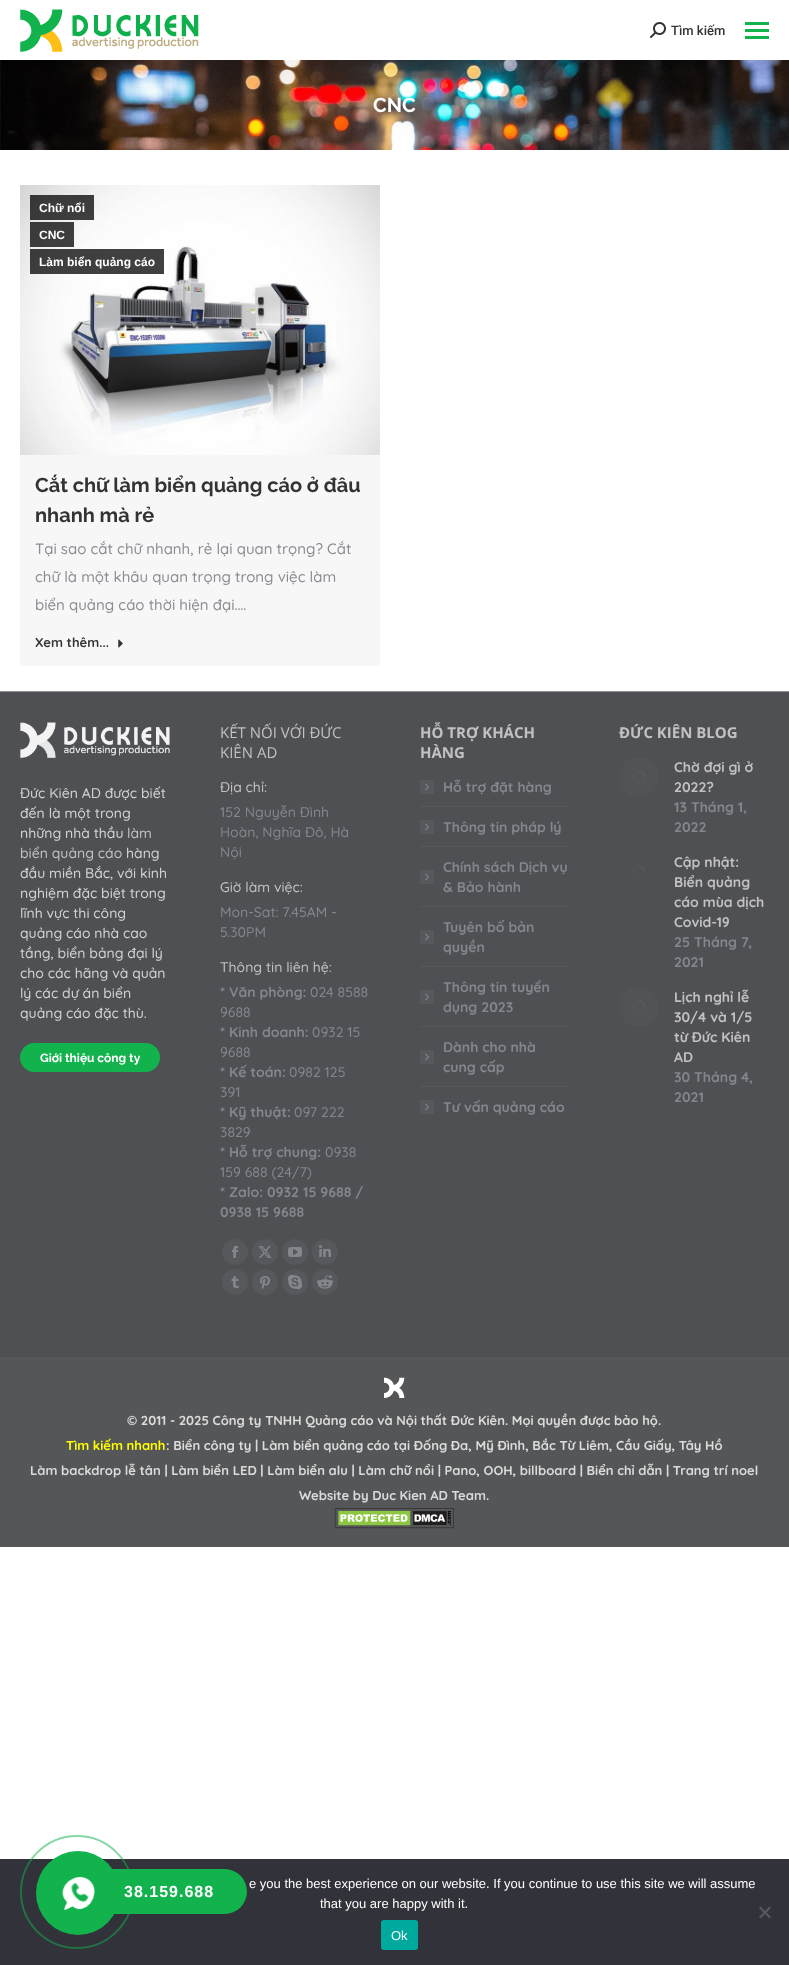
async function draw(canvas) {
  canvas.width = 789
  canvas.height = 1965
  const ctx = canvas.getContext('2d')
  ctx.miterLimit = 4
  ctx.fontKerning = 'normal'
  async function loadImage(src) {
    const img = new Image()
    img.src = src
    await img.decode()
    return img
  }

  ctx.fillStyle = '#fff'
  ctx.fillRect(0, 0, 789, 1965)
  ctx.drawImage(await loadImage('image0.png'), 20, 9, 179, 43)
  ctx.drawImage(await loadImage('image1.png'), 650, 22, 16, 16)
  ctx.font = '500 13px Roboto'
  ctx.fillStyle = '#333'
  ctx.fillText('Tìm kiếm', 671, 35)
  ctx.fillStyle = '#12b24c'
  ctx.fillRect(745, 22, 24, 3)
  ctx.fillRect(745, 29, 24, 3)
  ctx.fillRect(745, 36, 24, 3)
  ctx.drawImage(await loadImage('image2.png'), 0, 60, 789, 90)
  ctx.font = 'bold 20px Raleway'
  ctx.fillStyle = '#fff'
  ctx.fillText('CNC', 373, 112)
  ctx.fillStyle = '#f7f7f7'
  ctx.fillRect(20, 455, 360, 211)
  ctx.drawImage(await loadImage('image3.png'), 20, 185, 360, 270)
  ctx.fillStyle = '#000000bf'
  ctx.fillRect(30, 195, 64, 25)
  ctx.font = 'bold 12px Liberation Sans'
  ctx.fillStyle = '#fff'
  ctx.fillText('Chữ nổi', 39, 212)
  ctx.fillStyle = '#000000bf'
  ctx.fillRect(30, 222, 44, 25)
  ctx.fillStyle = '#fff'
  ctx.fillText('CNC', 39, 239)
  ctx.fillStyle = '#000000bf'
  ctx.fillRect(30, 249, 134, 25)
  ctx.fillStyle = '#fff'
  ctx.fillText('Làm biển quảng cáo', 39, 266)
  ctx.font = 'bold 20px Raleway'
  ctx.fillStyle = '#333'
  ctx.fillText('Cắt chữ làm biển quảng cáo ở đâu', 35, 492)
  ctx.fillText('nhanh mà rẻ', 35, 522)
  ctx.font = '500 15px Quicksand'
  ctx.fillStyle = '#8b8d94'
  ctx.fillText('Tại sao cắt chữ nhanh, rẻ lại quan trọng? Cắt', 35, 554)
  ctx.fillText('chữ là một khâu quan trọng trong việc làm', 35, 582)
  ctx.fillText('biển quảng cáo thời hiện đại.…', 35, 610)
  ctx.font = 'bold 13px Quicksand'
  ctx.fillStyle = '#333'
  ctx.fillText('Xem thêm...', 35, 647)
  ctx.drawImage(await loadImage('image4.png'), 118, 639, 5, 9)
  ctx.fillStyle = '#4f5053'
  ctx.fillRect(0, 692, 789, 665)
  ctx.fillStyle = '#919191'
  ctx.fillRect(0, 691, 789, 1)
  ctx.drawImage(await loadImage('image5.png'), 20, 722, 150, 36)
  ctx.font = '500 14px Quicksand'
  ctx.fillStyle = '#d1d3d4'
  ctx.fillText('Đức Kiên AD được biết', 20, 798)
  ctx.fillText('đến là một trong', 20, 818)
  ctx.fillText('những nhà thầu', 20, 838)
  ctx.fillStyle = '#c1c1c1'
  ctx.fillText('làm', 127, 838)
  ctx.fillText('biển quảng cáo', 20, 858)
  ctx.fillStyle = '#d1d3d4'
  ctx.fillText('hàng', 126, 858)
  ctx.fillText('đầu miền Bắc, với kinh', 20, 878)
  ctx.fillText('nghiệm đặc biệt trong', 20, 898)
  ctx.fillText('lĩnh vực thi công', 20, 918)
  ctx.fillText('quảng cáo nhà cao', 20, 938)
  ctx.fillText('tầng, biển bảng đại lý', 20, 958)
  ctx.fillText('cho các hãng và quản', 20, 978)
  ctx.fillText('lý các dự án biển', 20, 998)
  ctx.fillText('quảng cáo đặc thù.', 20, 1018)
  ctx.fillStyle = '#12b24c'
  ctx.beginPath()
  ctx.roundRect(20, 1043, 140, 29, 14.5)
  ctx.fill()
  ctx.font = 'bold 12px Raleway'
  ctx.fillStyle = '#fff'
  ctx.fillText('Giới thiệu công ty', 40, 1062)
  ctx.font = '15px Open Sans'
  ctx.fillStyle = '#c1c1c1'
  ctx.fillText('KẾT NỐI VỚI ĐỨC', 220, 738)
  ctx.fillText('KIÊN AD', 220, 758)
  ctx.font = '500 14px Quicksand'
  ctx.fillText('Địa chỉ:', 220, 792)
  ctx.fillStyle = '#85868c'
  ctx.fillText('152 Nguyễn Đình', 220, 817)
  ctx.fillText('Hoàn, Nghĩa Đô, Hà', 220, 837)
  ctx.fillText('Nội', 220, 857)
  ctx.fillStyle = '#c1c1c1'
  ctx.fillText('Giờ làm việc:', 220, 892)
  ctx.fillStyle = '#85868c'
  ctx.fillText('Mon-Sat: 7.45AM -', 220, 917)
  ctx.fillText('5.30PM', 220, 937)
  ctx.fillStyle = '#c1c1c1'
  ctx.fillText('Thông tin liên hệ:', 220, 972)
  ctx.font = 'bold 14px Quicksand'
  ctx.fillStyle = '#85868c'
  ctx.fillText('* Văn phòng:', 220, 997)
  ctx.font = '500 14px Quicksand'
  ctx.fillText('024 8588', 310, 997)
  ctx.fillText('9688', 220, 1017)
  ctx.font = 'bold 14px Quicksand'
  ctx.fillText('* Kinh doanh:', 220, 1037)
  ctx.font = '500 14px Quicksand'
  ctx.fillText('0932 15', 312, 1037)
  ctx.fillText('9688', 220, 1057)
  ctx.font = 'bold 14px Quicksand'
  ctx.fillText('* Kế toán:', 220, 1077)
  ctx.font = '500 14px Quicksand'
  ctx.fillText('0982 125', 289, 1077)
  ctx.fillText('391', 220, 1097)
  ctx.font = 'bold 14px Quicksand'
  ctx.fillText('* Kỹ thuật:', 220, 1117)
  ctx.font = '500 14px Quicksand'
  ctx.fillText('097 222', 294, 1117)
  ctx.fillText('3829', 220, 1137)
  ctx.font = 'bold 14px Quicksand'
  ctx.fillText('* Hỗ trợ chung:', 220, 1157)
  ctx.font = '500 14px Quicksand'
  ctx.fillText('0938', 325, 1157)
  ctx.fillText('159 688 (24/7)', 220, 1177)
  ctx.font = 'bold 14px Quicksand'
  ctx.fillText('* Zalo: 0932 15 9688 /', 220, 1197)
  ctx.fillText('0938 15 9688', 220, 1217)
  ctx.fillStyle = '#57585c'
  ctx.beginPath()
  ctx.arc(235, 1252, 13, 0, 2 * Math.PI)
  ctx.fill()
  ctx.drawImage(await loadImage('image6.png'), 232, 1246, 6, 12)
  ctx.beginPath()
  ctx.arc(265, 1252, 13, 0, 2 * Math.PI)
  ctx.fill()
  ctx.drawImage(await loadImage('image7.png'), 258, 1246, 14, 12)
  ctx.beginPath()
  ctx.arc(295, 1252, 13, 0, 2 * Math.PI)
  ctx.fill()
  ctx.drawImage(await loadImage('image8.png'), 288, 1247, 14, 10)
  ctx.beginPath()
  ctx.arc(325, 1252, 13, 0, 2 * Math.PI)
  ctx.fill()
  ctx.drawImage(await loadImage('image9.png'), 319, 1245, 12, 12)
  ctx.beginPath()
  ctx.arc(235, 1282, 13, 0, 2 * Math.PI)
  ctx.fill()
  ctx.drawImage(await loadImage('image10.png'), 231, 1276, 8, 12)
  ctx.beginPath()
  ctx.arc(265, 1282, 13, 0, 2 * Math.PI)
  ctx.fill()
  ctx.drawImage(await loadImage('image11.png'), 260, 1276, 11, 13)
  ctx.beginPath()
  ctx.arc(295, 1282, 13, 0, 2 * Math.PI)
  ctx.fill()
  ctx.drawImage(await loadImage('image12.png'), 288, 1274, 14, 16)
  ctx.beginPath()
  ctx.arc(325, 1282, 13, 0, 2 * Math.PI)
  ctx.fill()
  ctx.drawImage(await loadImage('image13.png'), 317, 1275, 16, 14)
  ctx.font = 'bold 15px Open Sans'
  ctx.fillStyle = '#c1c1c1'
  ctx.fillText('HỖ TRỢ KHÁCH', 420, 738)
  ctx.fillText('HÀNG', 420, 758)
  ctx.fillStyle = '#57585c'
  ctx.fillRect(420, 780, 14, 14)
  ctx.font = 'bold 14px Quicksand'
  ctx.fillStyle = '#85868c'
  ctx.fillText('Hỗ trợ đặt hàng', 443, 792)
  ctx.drawImage(await loadImage('image14.png'), 425, 783, 4, 8)
  ctx.fillStyle = '#57585c'
  ctx.fillRect(420, 806, 149, 1)
  ctx.fillRect(420, 820, 14, 14)
  ctx.fillStyle = '#85868c'
  ctx.fillText('Thông tin pháp lý', 443, 832)
  ctx.drawImage(await loadImage('image14.png'), 425, 823, 4, 8)
  ctx.fillStyle = '#57585c'
  ctx.fillRect(420, 846, 149, 1)
  ctx.fillStyle = '#85868c'
  ctx.fillText('Chính sách Dịch vụ', 443, 872)
  ctx.fillStyle = '#57585c'
  ctx.fillRect(420, 870, 14, 14)
  ctx.drawImage(await loadImage('image14.png'), 425, 873, 4, 8)
  ctx.fillStyle = '#85868c'
  ctx.fillText('& Bảo hành', 443, 892)
  ctx.fillStyle = '#57585c'
  ctx.fillRect(420, 906, 149, 1)
  ctx.fillStyle = '#85868c'
  ctx.fillText('Tuyên bố bản', 443, 932)
  ctx.fillStyle = '#57585c'
  ctx.fillRect(420, 930, 14, 14)
  ctx.drawImage(await loadImage('image14.png'), 425, 933, 4, 8)
  ctx.fillStyle = '#85868c'
  ctx.fillText('quyền', 443, 952)
  ctx.fillStyle = '#57585c'
  ctx.fillRect(420, 966, 149, 1)
  ctx.fillStyle = '#85868c'
  ctx.fillText('Thông tin tuyển', 443, 992)
  ctx.fillStyle = '#57585c'
  ctx.fillRect(420, 990, 14, 14)
  ctx.drawImage(await loadImage('image14.png'), 425, 993, 4, 8)
  ctx.fillStyle = '#85868c'
  ctx.fillText('dụng 2023', 443, 1012)
  ctx.fillStyle = '#57585c'
  ctx.fillRect(420, 1026, 149, 1)
  ctx.fillStyle = '#85868c'
  ctx.fillText('Dành cho nhà', 443, 1052)
  ctx.fillStyle = '#57585c'
  ctx.fillRect(420, 1050, 14, 14)
  ctx.drawImage(await loadImage('image14.png'), 425, 1053, 4, 8)
  ctx.fillStyle = '#85868c'
  ctx.fillText('cung cấp', 443, 1072)
  ctx.fillStyle = '#57585c'
  ctx.fillRect(420, 1086, 149, 1)
  ctx.fillRect(420, 1100, 14, 14)
  ctx.fillStyle = '#85868c'
  ctx.fillText('Tư vấn quảng cáo', 443, 1112)
  ctx.drawImage(await loadImage('image14.png'), 425, 1103, 4, 8)
  ctx.font = 'bold 15px Open Sans'
  ctx.fillStyle = '#c1c1c1'
  ctx.fillText('ĐỨC KIÊN BLOG', 619, 738)
  ctx.fillStyle = '#525356'
  ctx.beginPath()
  ctx.arc(639, 777, 20, 0, 2 * Math.PI)
  ctx.fill()
  ctx.drawImage(await loadImage('image15.png'), 633, 771, 12, 12)
  ctx.font = 'bold 14px Quicksand'
  ctx.fillStyle = '#c1c1c1'
  ctx.fillText('Chờ đợi gì ở', 674, 772)
  ctx.fillText('2022?', 674, 792)
  ctx.fillStyle = '#85868c'
  ctx.fillText('13 Tháng 1,', 674, 812)
  ctx.fillText('2022', 674, 832)
  ctx.drawImage(await loadImage('image16.png'), 633, 866, 12, 12)
  ctx.fillStyle = '#c1c1c1'
  ctx.fillText('Cập nhật:', 674, 867)
  ctx.fillText('Biển quảng', 674, 887)
  ctx.fillText('cáo mùa dịch', 674, 907)
  ctx.fillText('Covid-19', 674, 927)
  ctx.fillStyle = '#85868c'
  ctx.fillText('25 Tháng 7,', 674, 947)
  ctx.fillText('2021', 674, 967)
  ctx.fillStyle = '#525356'
  ctx.beginPath()
  ctx.arc(639, 1007, 20, 0, 2 * Math.PI)
  ctx.fill()
  ctx.drawImage(await loadImage('image15.png'), 633, 1001, 12, 12)
  ctx.fillStyle = '#c1c1c1'
  ctx.fillText('Lịch nghỉ lễ', 674, 1002)
  ctx.fillText('30/4 và 1/5', 674, 1022)
  ctx.fillText('từ Đức Kiên', 674, 1042)
  ctx.fillText('AD', 674, 1062)
  ctx.fillStyle = '#85868c'
  ctx.fillText('30 Tháng 4,', 674, 1082)
  ctx.fillText('2021', 674, 1102)
  ctx.fillStyle = '#555658'
  ctx.fillRect(0, 1357, 789, 190)
  ctx.drawImage(await loadImage('image17.png'), 384, 1377, 21, 21)
  ctx.font = 'bold 13px Quicksand'
  ctx.fillStyle = '#dbdbdb'
  ctx.fillText('© 2011 - 2025 Công ty TNHH Quảng cáo và Nội thất Đức Kiên. Mọi quyền được bảo hộ.', 127, 1425)
  ctx.fillStyle = '#ff0'
  ctx.fillText('Tìm kiếm nhanh', 66, 1450)
  ctx.fillStyle = '#dbdbdb'
  ctx.fillText(': Biển công ty | Làm biển quảng cáo tại Đống Đa, Mỹ Đình, Bắc Từ Liêm, Cầu Giấy, Tây Hồ', 166, 1450)
  ctx.fillText('Làm backdrop lễ tân | Làm biển LED | Làm biển alu | Làm chữ nổi | Pano, OOH, billboard | Biển chỉ dẫn | Trang trí noel', 30, 1475)
  ctx.fillText('Website by Duc Kien AD Team.', 299, 1500)
  ctx.drawImage(await loadImage('image18.png'), 334, 1508, 120, 21)
  ctx.fillStyle = '#32323a'
  ctx.fillRect(0, 1859, 789, 106)
  ctx.fillStyle = '#12b24c'
  ctx.beginPath()
  ctx.roundRect(62, 1869, 185, 45, 22.5)
  ctx.fill()
  ctx.letterSpacing = '1px'
  ctx.font = 'bold 16px Liberation Sans'
  ctx.fillStyle = '#fff'
  ctx.fillText('38.159.688', 124, 1897)
  ctx.beginPath()
  ctx.arc(77, 1892, 56, 0, 2 * Math.PI)
  ctx.strokeStyle = '#12b24c80'
  ctx.lineWidth = 2
  ctx.stroke()
  ctx.fillStyle = '#12b24c'
  ctx.beginPath()
  ctx.arc(78, 1893, 42, 0, 2 * Math.PI)
  ctx.fill()
  ctx.drawImage(await loadImage('image19.png'), 62, 1876, 33, 34)
  ctx.letterSpacing = '0px'
  ctx.font = '13px Liberation Sans'
  ctx.fillStyle = '#fff'
  ctx.fillText('e you the best experience on our website. If you continue to use this site we will assume', 249, 1888)
  ctx.fillText('that you are happy with it.', 320, 1908)
  ctx.fillStyle = '#59595d'
  ctx.beginPath()
  ctx.moveTo(769.5, 1906.5)
  ctx.lineTo(771, 1908)
  ctx.lineTo(760.5, 1918.5)
  ctx.lineTo(759, 1917)
  ctx.closePath()
  ctx.fill()
  ctx.beginPath()
  ctx.moveTo(759, 1908)
  ctx.lineTo(760.5, 1906.5)
  ctx.lineTo(771, 1917)
  ctx.lineTo(769.5, 1918.5)
  ctx.closePath()
  ctx.fill()
  ctx.fillStyle = '#00a99d'
  ctx.beginPath()
  ctx.roundRect(381, 1920, 37, 30, 3)
  ctx.fill()
  ctx.fillStyle = '#fff'
  ctx.fillText('Ok', 391, 1940)
}

draw(document.querySelector('canvas'))
